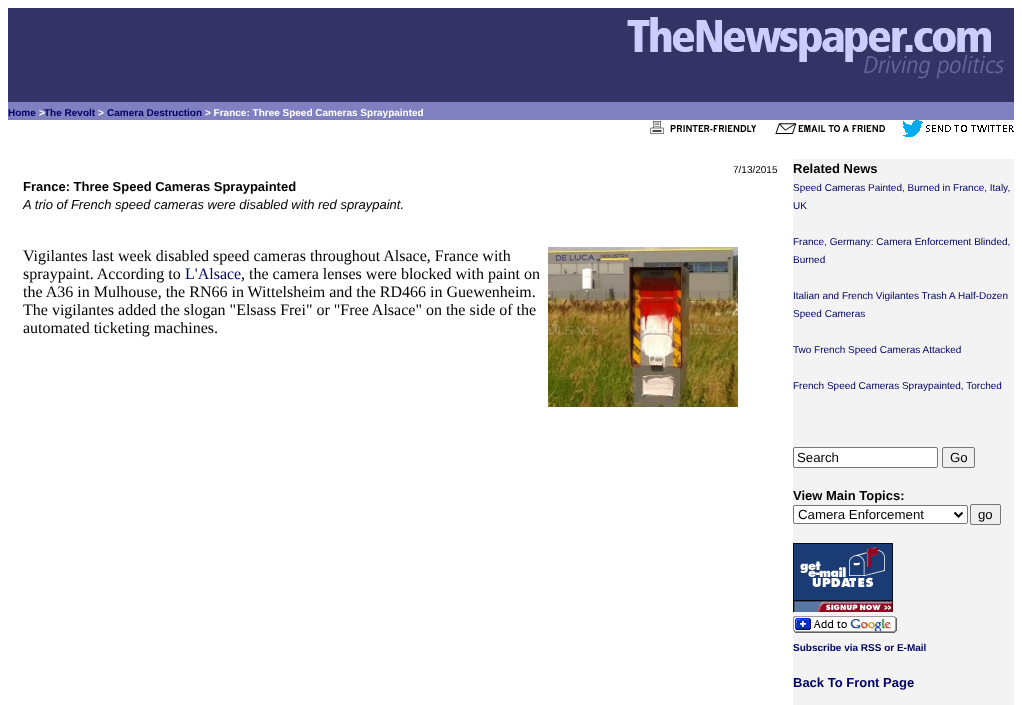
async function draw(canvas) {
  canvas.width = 1022
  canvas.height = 705
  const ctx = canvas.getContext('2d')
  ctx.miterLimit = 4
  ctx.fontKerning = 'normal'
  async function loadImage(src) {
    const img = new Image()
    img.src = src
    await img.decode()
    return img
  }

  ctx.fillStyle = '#fff'
  ctx.fillRect(0, 0, 1022, 705)
  ctx.fillStyle = '#336'
  ctx.fillRect(8, 8, 1006, 94)
  ctx.drawImage(await loadImage('image0.png'), 627, 17, 377, 62)
  ctx.fillStyle = '#8080c0'
  ctx.fillRect(8, 102, 1006, 18)
  ctx.font = 'bold 10px Liberation Sans'
  ctx.fillStyle = '#006'
  ctx.fillText('Home', 8, 116)
  ctx.fillStyle = '#fff'
  ctx.fillText('>', 39, 116)
  ctx.fillStyle = '#006'
  ctx.fillText('The Revolt', 44, 116)
  ctx.fillStyle = '#fff'
  ctx.fillText('>', 98, 116)
  ctx.fillStyle = '#006'
  ctx.fillText('Camera Destruction', 107, 116)
  ctx.fillStyle = '#fff'
  ctx.fillText('> France: Three Speed Cameras Spraypainted', 205, 116)
  ctx.drawImage(await loadImage('image1.png'), 650, 121, 106, 13)
  ctx.drawImage(await loadImage('image2.png'), 775, 123, 110, 11)
  ctx.drawImage(await loadImage('image3.png'), 903, 120, 111, 17)
  ctx.font = '10px Liberation Sans'
  ctx.fillStyle = '#000'
  ctx.fillText('7/13/2015', 733, 173)
  ctx.font = 'bold 13px Liberation Sans'
  ctx.fillText('France: Three Speed Cameras Spraypainted', 23, 191)
  ctx.font = 'italic 13px Liberation Sans'
  ctx.fillText('A trio of French speed cameras were disabled with red spraypaint.', 23, 209)
  ctx.font = '16px Liberation Serif'
  ctx.fillText('Vigilantes last week disabled speed cameras throughout Alsace, France with', 23, 261)
  ctx.fillText('spraypaint. According to', 23, 279)
  ctx.fillStyle = '#006'
  ctx.fillText('L\'Alsace', 185, 279)
  ctx.fillStyle = '#000'
  ctx.fillText(', the camera lenses were blocked with paint on', 241, 279)
  ctx.fillText('the A36 in Mulhouse, the RN66 in Wittelsheim and the RD466 in Guewenheim.', 23, 297)
  ctx.fillText('The vigilantes added the slogan "Elsass Frei" or "Free Alsace" on the side of the', 23, 315)
  ctx.fillText('automated ticketing machines.', 23, 333)
  ctx.drawImage(await loadImage('image4.png'), 548, 247, 190, 160)
  ctx.fillStyle = '#f3f3f3'
  ctx.fillRect(793, 159, 221, 546)
  ctx.font = 'bold 13px Liberation Sans'
  ctx.fillStyle = '#000'
  ctx.fillText('Related News', 793, 173)
  ctx.font = '10px Liberation Sans'
  ctx.fillStyle = '#006'
  ctx.fillText('Speed Cameras Painted, Burned in France, Italy,', 793, 191)
  ctx.fillText('UK', 793, 209)
  ctx.fillText('France, Germany: Camera Enforcement Blinded,', 793, 245)
  ctx.fillText('Burned', 793, 263)
  ctx.fillText('Italian and French Vigilantes Trash A Half-Dozen', 793, 299)
  ctx.fillText('Speed Cameras', 793, 317)
  ctx.fillText('Two French Speed Cameras Attacked', 793, 353)
  ctx.fillText('French Speed Cameras Spraypainted, Torched', 793, 389)
  ctx.fillStyle = '#fff'
  ctx.beginPath()
  ctx.roundRect(793.5, 447.5, 144, 20, 1.5)
  ctx.fill()
  ctx.strokeStyle = '#767676'
  ctx.stroke()
  ctx.font = '13.25px Liberation Sans'
  ctx.fillStyle = '#000'
  ctx.fillText('Search', 797, 462)
  ctx.fillStyle = '#efefef'
  ctx.beginPath()
  ctx.roundRect(942.5, 447.5, 32, 20, 1.5)
  ctx.fill()
  ctx.stroke()
  ctx.fillStyle = '#000'
  ctx.fillText('Go', 950, 462)
  ctx.font = 'bold 13px Liberation Sans'
  ctx.fillText('View Main Topics:', 793, 500)
  ctx.fillStyle = '#fff'
  ctx.beginPath()
  ctx.roundRect(793.5, 505.5, 174, 18, 1.5)
  ctx.fill()
  ctx.stroke()
  ctx.beginPath()
  ctx.moveTo(954.5, 512.5)
  ctx.lineTo(958.5, 516.5)
  ctx.lineTo(962.5, 512.5)
  ctx.strokeStyle = '#000'
  ctx.lineWidth = 2
  ctx.stroke()
  ctx.font = '13.25px Liberation Sans'
  ctx.fillStyle = '#000'
  ctx.fillText('Camera Enforcement', 798, 519)
  ctx.fillStyle = '#efefef'
  ctx.beginPath()
  ctx.roundRect(970.5, 504.5, 30, 20, 1.5)
  ctx.fill()
  ctx.strokeStyle = '#767676'
  ctx.lineWidth = 1
  ctx.stroke()
  ctx.fillStyle = '#000'
  ctx.fillText('go', 978, 519)
  ctx.drawImage(await loadImage('image5.png'), 793, 543, 100, 69)
  ctx.drawImage(await loadImage('image6.png'), 793, 616, 104, 17)
  ctx.font = 'bold 10px Liberation Sans'
  ctx.fillStyle = '#006'
  ctx.fillText('Subscribe via RSS or E-Mail', 793, 651)
  ctx.font = 'bold 13px Liberation Sans'
  ctx.fillText('Back To Front Page', 793, 687)
}

draw(document.querySelector('canvas'))
